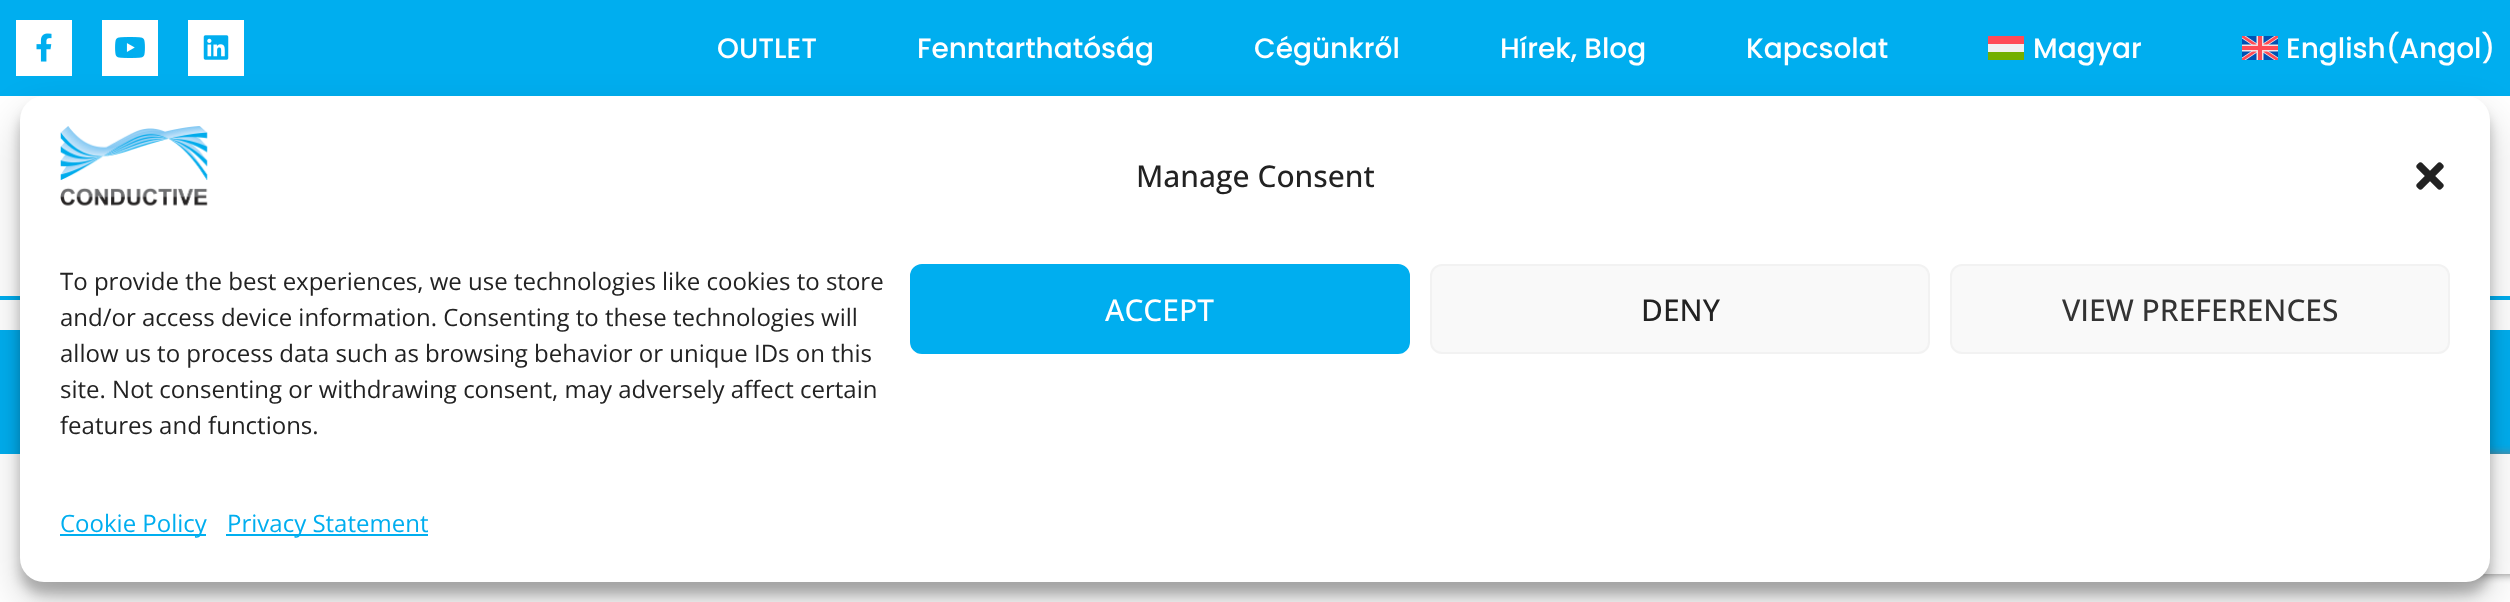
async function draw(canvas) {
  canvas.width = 2510
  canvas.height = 602
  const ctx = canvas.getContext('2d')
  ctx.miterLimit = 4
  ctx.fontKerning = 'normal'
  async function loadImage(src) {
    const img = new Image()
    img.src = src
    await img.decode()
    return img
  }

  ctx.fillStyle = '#fff'
  ctx.fillRect(0, 0, 2510, 602)
  ctx.fillStyle = '#00aeef'
  ctx.fillRect(0, 0, 2510, 96)
  ctx.fillStyle = '#fff'
  ctx.fillRect(16, 20, 56, 56)
  ctx.drawImage(await loadImage('image0.png'), 36, 33, 16, 29)
  ctx.fillRect(102, 20, 56, 56)
  ctx.drawImage(await loadImage('image1.png'), 115, 37, 30, 21)
  ctx.fillRect(188, 20, 56, 56)
  ctx.drawImage(await loadImage('image2.png'), 203, 35, 26, 25)
  ctx.font = '500 28px Poppins'
  ctx.fillText('OUTLET', 717, 58)
  ctx.fillText('Fenntarthatóság', 917, 58)
  ctx.fillText('Cégünkről', 1254, 58)
  ctx.fillText('Hírek, Blog', 1500, 58)
  ctx.fillText('Kapcsolat', 1746, 58)
  ctx.fillStyle = '#f0f0f0'
  ctx.fillRect(1988, 44, 36, 8)
  ctx.fillStyle = '#73af00'
  ctx.fillRect(1988, 52, 36, 8)
  ctx.fillStyle = '#ff4b55'
  ctx.fillRect(1988, 36, 36, 8)
  ctx.fillStyle = '#fff'
  ctx.fillText('Magyar', 2033, 58)
  ctx.drawImage(await loadImage('image3.png'), 2242, 36, 36, 24)
  ctx.fillText('English(Angol)', 2286, 58)
  ctx.fillStyle = '#00aeef'
  ctx.fillRect(0, 296, 2510, 4)
  ctx.fillRect(0, 330, 2510, 124)
  ctx.save()
  ctx.beginPath()
  ctx.moveTo(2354, 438)
  ctx.lineTo(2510, 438)
  ctx.lineTo(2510, 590)
  ctx.lineTo(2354, 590)
  ctx.closePath()
  ctx.moveTo(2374, 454)
  ctx.lineTo(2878, 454)
  ctx.bezierCurveTo(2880, 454, 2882, 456, 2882, 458)
  ctx.lineTo(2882, 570)
  ctx.bezierCurveTo(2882, 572, 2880, 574, 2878, 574)
  ctx.lineTo(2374, 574)
  ctx.bezierCurveTo(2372, 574, 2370, 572, 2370, 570)
  ctx.lineTo(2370, 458)
  ctx.bezierCurveTo(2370, 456, 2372, 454, 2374, 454)
  ctx.closePath()
  ctx.clip('evenodd')
  ctx.fillStyle = '#808080'
  ctx.filter = 'blur(5px)'
  ctx.beginPath()
  ctx.roundRect(2370, 454, 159, 120, 4)
  ctx.fill()
  ctx.filter = 'none'
  ctx.restore()
  ctx.fillStyle = '#0000003b'
  ctx.filter = 'blur(6px)'
  ctx.beginPath()
  ctx.roundRect(20, 108, 2470, 486, 24)
  ctx.fill()
  ctx.filter = 'none'
  ctx.fillStyle = '#00000030'
  ctx.filter = 'blur(20px)'
  ctx.beginPath()
  ctx.roundRect(20, 116, 2470, 486, 24)
  ctx.fill()
  ctx.filter = 'none'
  ctx.fillStyle = '#fff'
  ctx.beginPath()
  ctx.roundRect(20, 96, 2470, 486, 24)
  ctx.fill()
  ctx.drawImage(await loadImage('image4.png'), 60, 126, 148, 80)
  ctx.font = '500 30px Open Sans'
  ctx.fillStyle = '#222'
  ctx.fillText('Manage Consent', 1136, 187)
  ctx.drawImage(await loadImage('image5.png'), 2416, 162, 28, 28)
  ctx.font = '24px Open Sans'
  ctx.fillText('To provide the best experiences, we use technologies like cookies to store', 60, 290)
  ctx.fillText('and/or access device information. Consenting to these technologies will', 60, 326)
  ctx.fillText('allow us to process data such as browsing behavior or unique IDs on this', 60, 362)
  ctx.fillText('site. Not consenting or withdrawing consent, may adversely affect certain', 60, 398)
  ctx.fillText('features and functions.', 60, 434)
  ctx.fillStyle = '#00aeef'
  ctx.beginPath()
  ctx.roundRect(911, 265, 498, 88, 11)
  ctx.fill()
  ctx.strokeStyle = '#00aeef'
  ctx.lineWidth = 2
  ctx.stroke()
  ctx.font = '500 30px Open Sans'
  ctx.fillStyle = '#fff'
  ctx.fillText('ACCEPT', 1105, 321)
  ctx.fillStyle = '#f9f9f9'
  ctx.beginPath()
  ctx.roundRect(1431, 265, 498, 88, 11)
  ctx.fill()
  ctx.strokeStyle = '#f2f2f2'
  ctx.stroke()
  ctx.fillStyle = '#222'
  ctx.fillText('DENY', 1641, 321)
  ctx.fillStyle = '#f9f9f9'
  ctx.beginPath()
  ctx.roundRect(1951, 265, 498, 88, 11)
  ctx.fill()
  ctx.stroke()
  ctx.fillStyle = '#333'
  ctx.fillText('VIEW PREFERENCES', 2062, 321)
  ctx.fillStyle = '#00aeef'
  ctx.fillRect(60, 534, 146, 2)
  ctx.font = '24px Open Sans'
  ctx.fillText('Cookie Policy', 60, 532)
  ctx.fillRect(226, 534, 202, 2)
  ctx.fillText('Privacy Statement', 227, 532)
}

draw(document.querySelector('canvas'))
